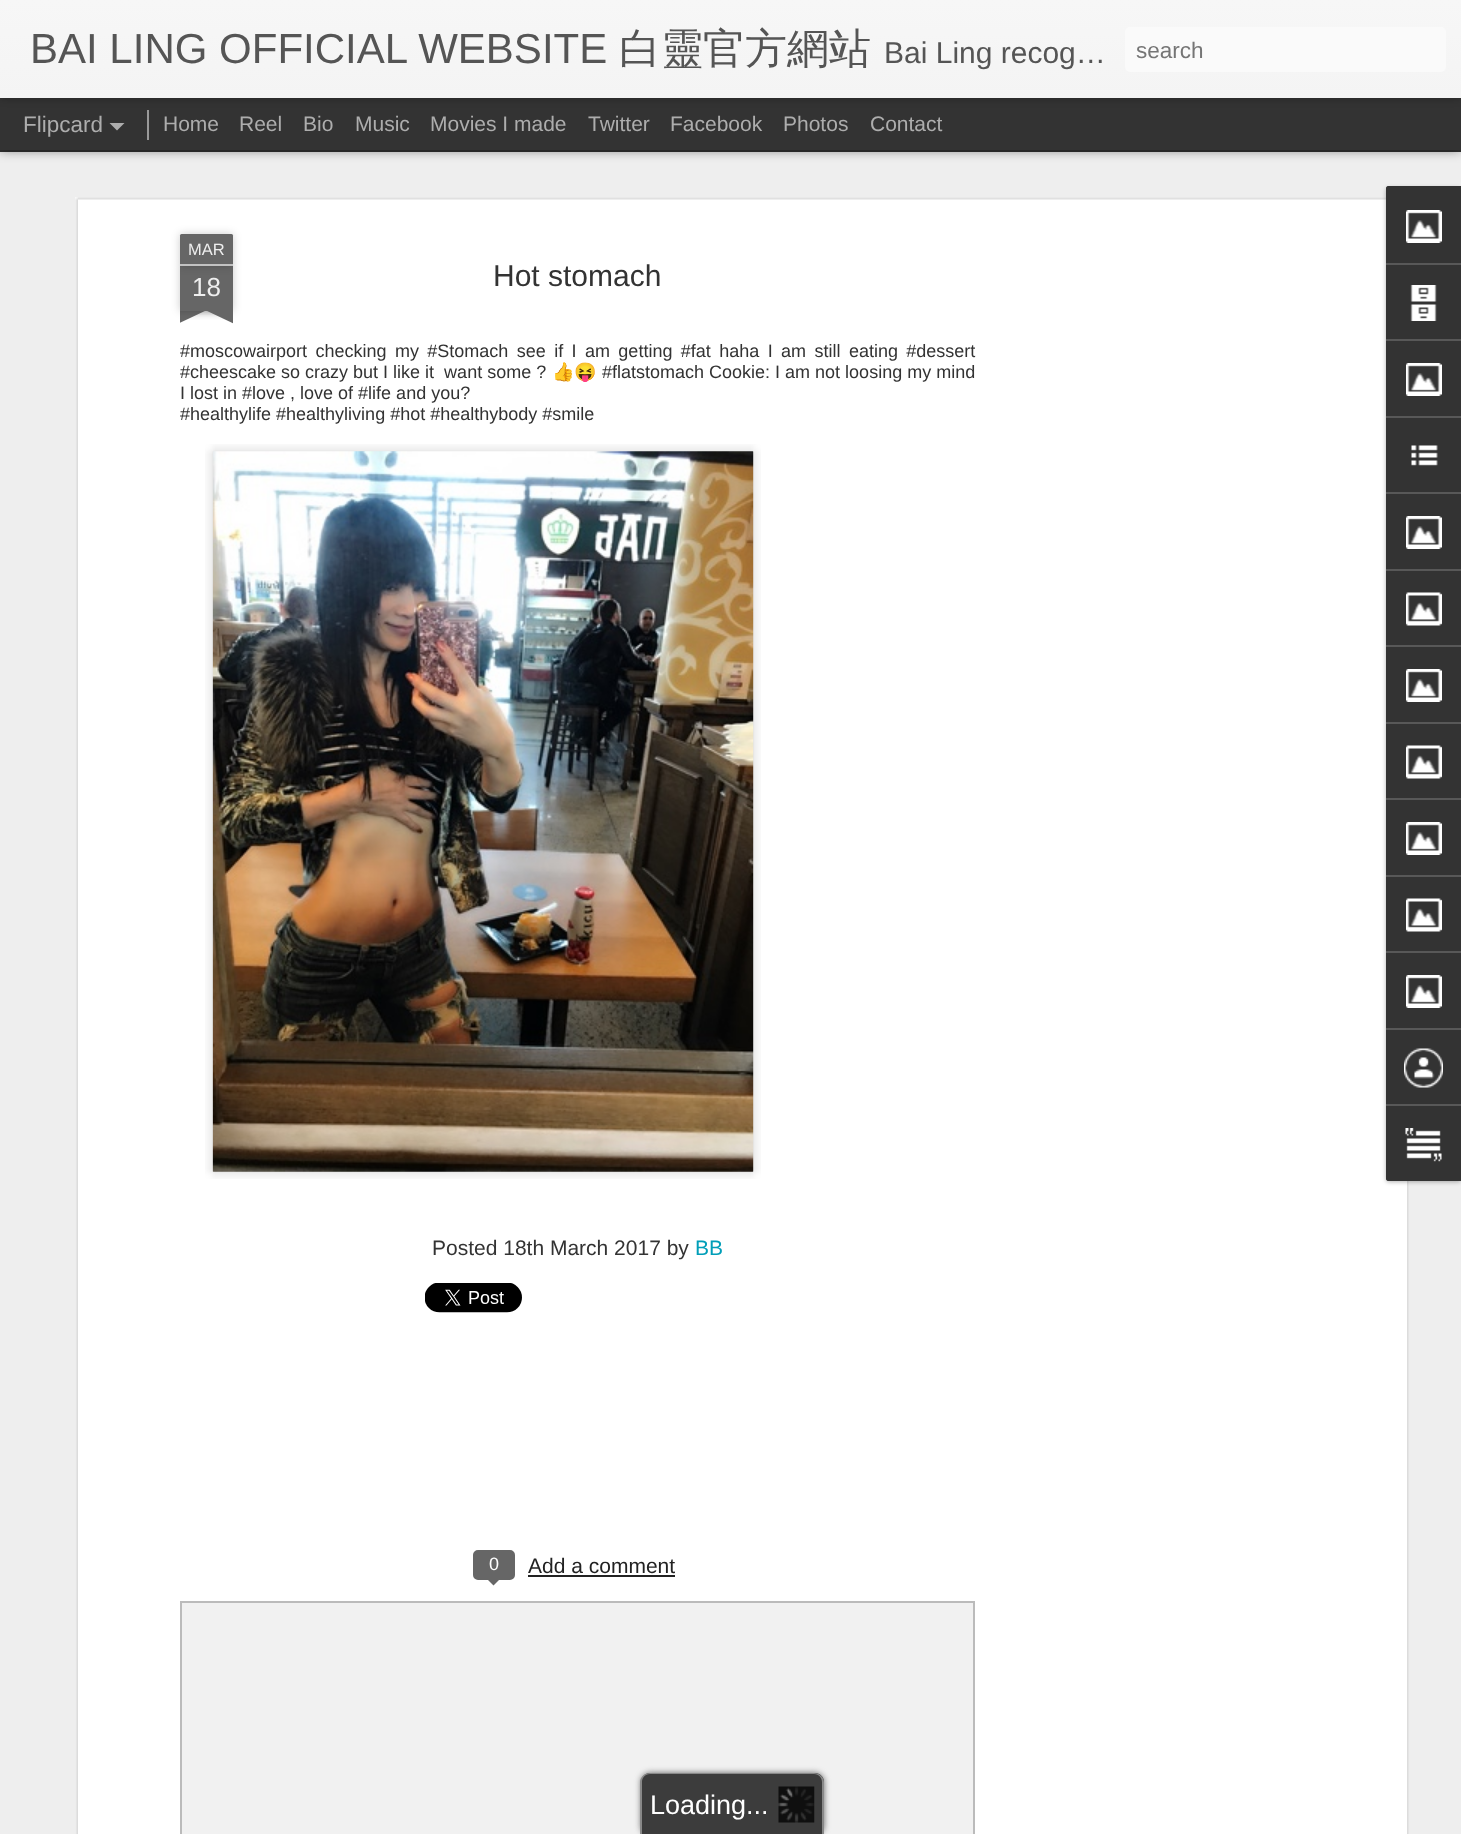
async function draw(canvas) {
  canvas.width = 1461
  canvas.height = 1834
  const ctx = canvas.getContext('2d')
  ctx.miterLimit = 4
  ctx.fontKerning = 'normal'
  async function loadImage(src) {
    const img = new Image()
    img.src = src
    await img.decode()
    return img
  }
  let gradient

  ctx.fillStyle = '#333'
  ctx.fillRect(0, 0, 1461, 1834)
  ctx.fillStyle = '#eee'
  ctx.fillRect(0, 152, 1461, 1682)
  ctx.fillStyle = '#00000080'
  ctx.filter = 'blur(6px)'
  ctx.beginPath()
  ctx.rect(0, 98, 1461, 52)
  ctx.fill()
  ctx.filter = 'none'
  ctx.fillStyle = '#333'
  ctx.fillRect(0, 98, 1461, 52)
  ctx.fillStyle = '#999'
  ctx.fillRect(147, 110, 2, 30)
  ctx.fillStyle = '#0000004d'
  ctx.filter = 'blur(4px)'
  ctx.beginPath()
  ctx.rect(0, 0, 1461, 98)
  ctx.fill()
  ctx.filter = 'none'
  gradient = ctx.createLinearGradient(0, 0, 0, 98)
  gradient.addColorStop(0, '#f7f7f7')
  gradient.addColorStop(1, '#f4f4f4')
  ctx.fillStyle = gradient
  ctx.fillRect(0, 0, 1461, 98)
  ctx.font = '42px Liberation Sans'
  ctx.fillStyle = '#555'
  ctx.fillText('BAI LING OFFICIAL WEBSITE', 30, 63)
  ctx.font = '500 42px WenQuanYi Zen Hei'
  ctx.fillText('白靈官方網站', 619, 63)
  ctx.font = '30px Liberation Sans'
  ctx.fillText('Bai Ling recog…', 884, 63)
  ctx.fillStyle = '#fafafa'
  ctx.beginPath()
  ctx.roundRect(1125, 27, 321, 45, 5)
  ctx.fill()
  ctx.font = '22.5px Liberation Sans'
  ctx.fillStyle = '#757575'
  ctx.fillText('search', 1136, 58)
  ctx.fillStyle = '#adadad'
  ctx.fillText('Flipcard', 23, 132)
  ctx.beginPath()
  ctx.moveTo(109.5, 123)
  ctx.lineTo(124.5, 123)
  ctx.lineTo(117, 130.5)
  ctx.closePath()
  ctx.fill()
  ctx.font = '21px Liberation Sans'
  ctx.fillText('Home', 163, 131)
  ctx.fillText('Reel', 239, 131)
  ctx.fillText('Bio', 303, 131)
  ctx.fillText('Music', 355, 131)
  ctx.fillText('Movies I made', 430, 131)
  ctx.fillText('Twitter', 588, 131)
  ctx.fillText('Facebook', 670, 131)
  ctx.fillText('Photos', 783, 131)
  ctx.fillText('Contact', 870, 131)
  ctx.fillStyle = '#fff'
  ctx.fillRect(75, 197, 1335, 1637)
  ctx.drawImage(await loadImage('image0.png'), 75, 197, 1335, 1637)
  ctx.fillStyle = '#00000033'
  ctx.filter = 'blur(4px)'
  ctx.beginPath()
  ctx.rect(180, 266, 53, 45)
  ctx.fill()
  ctx.filter = 'none'
  ctx.fillStyle = '#666'
  ctx.fillRect(180, 266, 53, 45)
  ctx.fillStyle = '#00000033'
  ctx.filter = 'blur(4px)'
  ctx.beginPath()
  ctx.roundRect(180, 234, 53, 32, 1.5)
  ctx.fill()
  ctx.filter = 'none'
  ctx.fillStyle = '#666'
  ctx.beginPath()
  ctx.roundRect(180, 234, 53, 32, [1.5, 1.5, 0, 0])
  ctx.fill()
  ctx.fillStyle = '#c2c2c2'
  ctx.fillRect(180, 264, 53, 2)
  ctx.font = '16.5px Liberation Sans'
  ctx.fillStyle = '#eee'
  ctx.fillText('MAR', 188, 255)
  ctx.font = '26px Liberation Sans'
  ctx.fillText('18', 192, 296)
  ctx.save()
  ctx.beginPath()
  ctx.rect(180, 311, 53, 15)
  ctx.clip()
  ctx.fillStyle = '#00000033'
  ctx.filter = 'blur(4px)'
  ctx.beginPath()
  ctx.rect(167, 296, 75, 15)
  ctx.fill()
  ctx.filter = 'none'
  ctx.restore()
  ctx.save()
  ctx.beginPath()
  ctx.rect(180, 311, 53, 15)
  ctx.clip()
  ctx.fillStyle = '#666'
  ctx.beginPath()
  ctx.moveTo(167, 312)
  ctx.lineTo(235, 280)
  ctx.lineTo(241, 294)
  ctx.lineTo(173, 326)
  ctx.closePath()
  ctx.fill()
  ctx.restore()
  ctx.save()
  ctx.beginPath()
  ctx.rect(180, 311, 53, 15)
  ctx.clip()
  ctx.fillStyle = '#00000033'
  ctx.filter = 'blur(4px)'
  ctx.beginPath()
  ctx.rect(171, 296, 75, 15)
  ctx.fill()
  ctx.filter = 'none'
  ctx.restore()
  ctx.save()
  ctx.beginPath()
  ctx.rect(180, 311, 53, 15)
  ctx.clip()
  ctx.fillStyle = '#666'
  ctx.beginPath()
  ctx.moveTo(178, 280)
  ctx.lineTo(246, 312)
  ctx.lineTo(239, 326)
  ctx.lineTo(171, 294)
  ctx.closePath()
  ctx.fill()
  ctx.restore()
  ctx.font = '30px Liberation Sans'
  ctx.fillStyle = '#333'
  ctx.fillText('Hot stomach', 493, 286)
  ctx.wordSpacing = '3.4px'
  ctx.font = '18px Liberation Sans'
  ctx.fillText('#moscowairport checking my #Stomach see if I am getting #fat haha I am still eating #dessert', 180, 357)
  ctx.wordSpacing = '0px'
  ctx.fillText('#cheescake so crazy but I like it  want some ?', 180, 378)
  ctx.font = '18px Noto Color Emoji'
  ctx.fillText('👍😝', 552, 378)
  ctx.font = '18px Liberation Sans'
  ctx.fillText('#flatstomach Cookie: I am not loosing my mind', 602, 378)
  ctx.fillText('I lost in #love , love of #life and you?', 180, 399)
  ctx.fillText('#healthylife #healthyliving #hot #healthybody #smile', 180, 420)
  ctx.drawImage(await loadImage('image1.png'), 205, 444, 556, 735)
  ctx.drawImage(await loadImage('image2.png'), 212, 451, 542, 721)
  ctx.font = '21px Liberation Sans'
  ctx.fillText('Posted 18th March 2017 by', 432, 1255)
  ctx.fillStyle = '#009eb8'
  ctx.fillText('BB', 695, 1255)
  ctx.drawImage(await loadImage('image3.png'), 425, 1283, 97, 30)
  ctx.fillStyle = '#666'
  ctx.beginPath()
  ctx.roundRect(474, 1551, 40, 28, 4)
  ctx.fill()
  ctx.strokeStyle = '#666'
  ctx.lineWidth = 2
  ctx.stroke()
  ctx.font = '18px Liberation Sans'
  ctx.fillStyle = '#fff'
  ctx.fillText('0', 489, 1570)
  ctx.fillStyle = '#666'
  ctx.beginPath()
  ctx.moveTo(486, 1578)
  ctx.lineTo(501, 1578)
  ctx.lineTo(493.5, 1585.5)
  ctx.closePath()
  ctx.fill()
  ctx.font = '21px Liberation Sans'
  ctx.fillStyle = '#222'
  ctx.fillText('Add a comment', 528, 1573)
  ctx.fillRect(528, 1575, 147, 2)
  ctx.fillStyle = '#f1f1f1'
  ctx.beginPath()
  ctx.rect(181, 1602, 793, 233)
  ctx.fill()
  ctx.strokeStyle = '#bbb'
  ctx.stroke()
  ctx.fillStyle = '#0000004d'
  ctx.filter = 'blur(2px)'
  ctx.beginPath()
  ctx.roundRect(1386, 188, 75, 994, 3)
  ctx.fill()
  ctx.filter = 'none'
  ctx.fillStyle = '#333'
  ctx.beginPath()
  ctx.roundRect(1386, 186, 75, 995, [3, 0, 0, 3])
  ctx.fill()
  ctx.beginPath()
  ctx.roundRect(1386, 186, 75, 77, [3, 0, 0, 0])
  ctx.fill()
  ctx.drawImage(await loadImage('image4.png'), 1406, 210, 36, 33)
  ctx.fillStyle = '#585858'
  ctx.fillRect(1386, 263, 75, 2)
  ctx.drawImage(await loadImage('image5.png'), 1410, 285, 27, 36)
  ctx.fillRect(1386, 339, 75, 2)
  ctx.drawImage(await loadImage('image4.png'), 1406, 363, 36, 33)
  ctx.fillRect(1386, 416, 75, 2)
  ctx.drawImage(await loadImage('image6.png'), 1411, 445, 27, 21)
  ctx.fillRect(1386, 492, 75, 2)
  ctx.drawImage(await loadImage('image4.png'), 1406, 516, 36, 33)
  ctx.fillRect(1386, 569, 75, 2)
  ctx.drawImage(await loadImage('image7.png'), 1406, 592, 36, 34)
  ctx.fillRect(1386, 645, 75, 2)
  ctx.drawImage(await loadImage('image4.png'), 1406, 669, 36, 33)
  ctx.fillRect(1386, 722, 75, 2)
  ctx.drawImage(await loadImage('image7.png'), 1406, 745, 36, 34)
  ctx.fillRect(1386, 798, 75, 2)
  ctx.drawImage(await loadImage('image4.png'), 1406, 822, 36, 33)
  ctx.fillRect(1386, 875, 75, 2)
  ctx.drawImage(await loadImage('image7.png'), 1406, 898, 36, 34)
  ctx.fillRect(1386, 951, 75, 2)
  ctx.drawImage(await loadImage('image4.png'), 1406, 975, 36, 33)
  ctx.fillRect(1386, 1028, 75, 2)
  ctx.drawImage(await loadImage('image8.png'), 1404, 1048, 39, 40)
  ctx.fillStyle = '#333'
  ctx.beginPath()
  ctx.roundRect(1386, 1104, 75, 77, [0, 0, 0, 3])
  ctx.fill()
  ctx.fillStyle = '#585858'
  ctx.fillRect(1386, 1104, 75, 2)
  ctx.drawImage(await loadImage('image9.png'), 1405, 1128, 37, 34)
  ctx.fillStyle = '#636363'
  ctx.filter = 'blur(3px)'
  ctx.beginPath()
  ctx.roundRect(641, 1773, 183, 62, 9)
  ctx.fill()
  ctx.filter = 'none'
  ctx.fillStyle = '#3c3c3c'
  ctx.beginPath()
  ctx.moveTo(650, 1773)
  ctx.lineTo(815, 1773)
  ctx.bezierCurveTo(820, 1773, 824, 1777, 824, 1782)
  ctx.lineTo(824, 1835)
  ctx.lineTo(641, 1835)
  ctx.lineTo(641, 1782)
  ctx.bezierCurveTo(641, 1777, 645, 1773, 650, 1773)
  ctx.closePath()
  ctx.fill()
  ctx.fillStyle = '#898989'
  ctx.beginPath()
  ctx.moveTo(650, 1773)
  ctx.lineTo(814, 1773)
  ctx.bezierCurveTo(819, 1773, 824, 1777, 824, 1782)
  ctx.lineTo(824, 1834)
  ctx.lineTo(640, 1834)
  ctx.lineTo(640, 1782)
  ctx.bezierCurveTo(640, 1777, 645, 1773, 650, 1773)
  ctx.closePath()
  ctx.moveTo(650, 1774)
  ctx.lineTo(814, 1774)
  ctx.bezierCurveTo(819, 1774, 822, 1778, 822, 1782)
  ctx.lineTo(822, 1834)
  ctx.lineTo(642, 1834)
  ctx.lineTo(642, 1782)
  ctx.bezierCurveTo(642, 1778, 645, 1774, 650, 1774)
  ctx.closePath()
  ctx.fill('evenodd')
  ctx.drawImage(await loadImage('image10.png'), 778, 1786, 37, 37)
  ctx.font = '27px Liberation Sans'
  ctx.fillStyle = '#fff'
  ctx.fillText('Loading...', 650, 1814)
}

draw(document.querySelector('canvas'))
